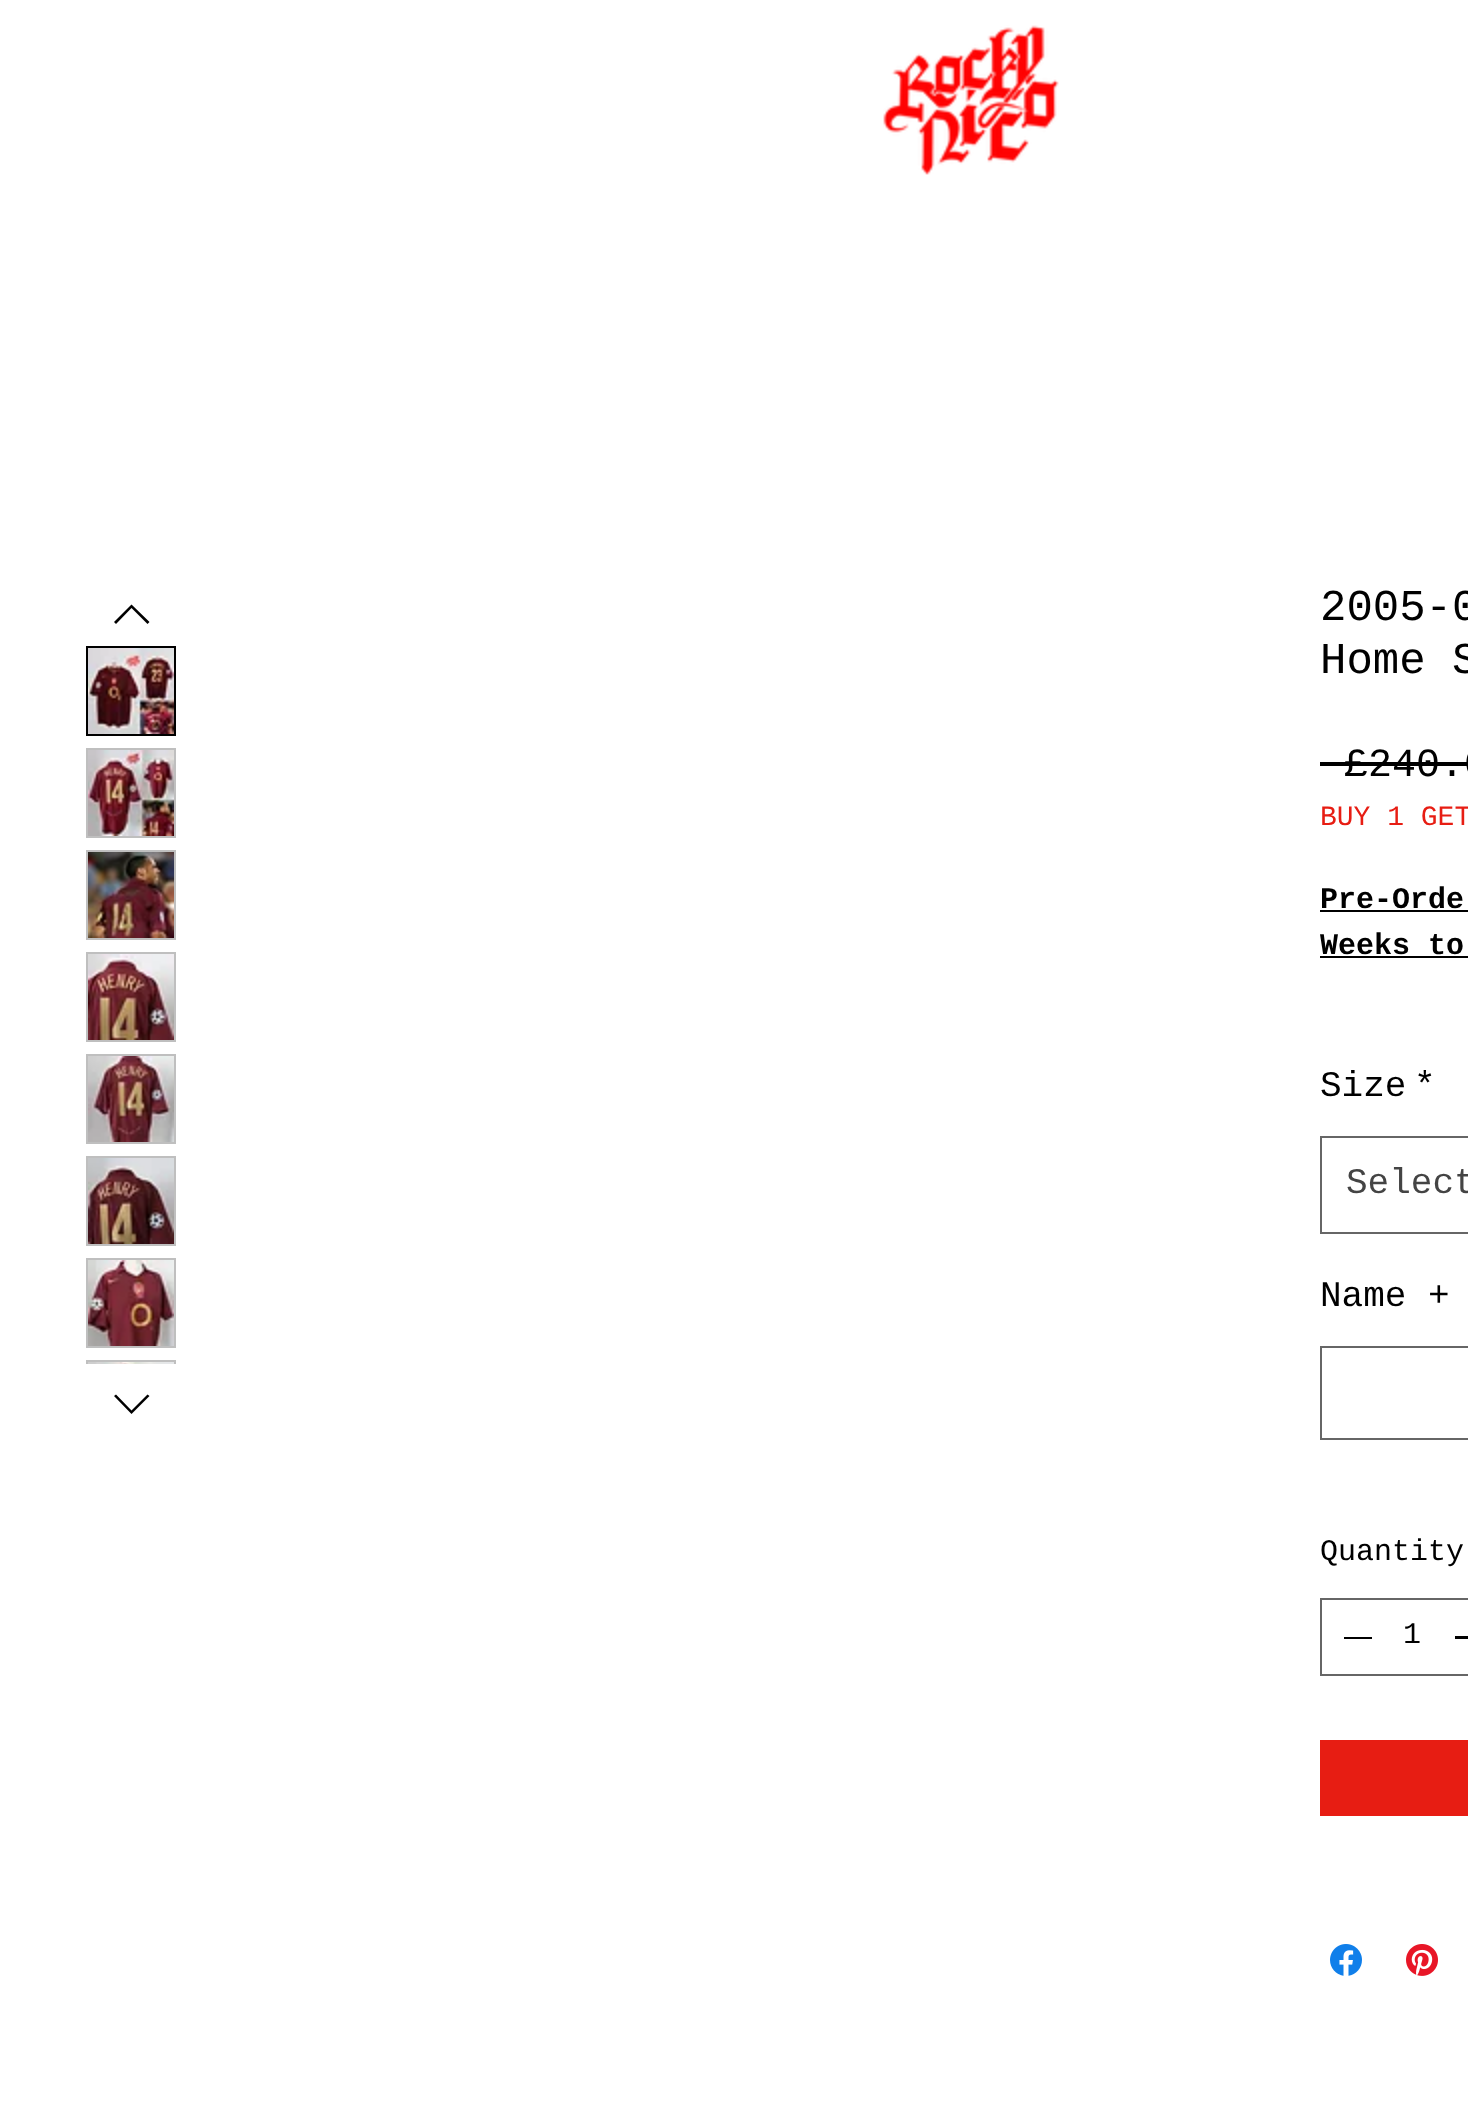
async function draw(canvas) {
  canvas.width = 1468
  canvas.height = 2110
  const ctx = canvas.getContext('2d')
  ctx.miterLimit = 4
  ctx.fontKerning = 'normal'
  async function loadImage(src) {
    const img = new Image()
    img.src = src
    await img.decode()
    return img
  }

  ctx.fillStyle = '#fff'
  ctx.fillRect(0, 0, 1468, 2110)
  ctx.drawImage(await loadImage('image0.png'), 883, 25, 176, 150)
  ctx.fillStyle = '#000'
  ctx.beginPath()
  ctx.moveTo(131.5, 604.5)
  ctx.lineTo(149.5, 622)
  ctx.lineTo(147.5, 624)
  ctx.lineTo(131.5, 608)
  ctx.lineTo(116, 624)
  ctx.lineTo(114, 622)
  ctx.closePath()
  ctx.fill('evenodd')
  ctx.strokeStyle = '#000'
  ctx.lineWidth = 2
  ctx.strokeRect(87, 647, 88, 88)
  ctx.drawImage(await loadImage('image1.png'), 88, 648, 86, 86)
  ctx.fillStyle = '#bfbfbf'
  ctx.fillRect(86, 748, 90, 90)
  ctx.drawImage(await loadImage('image2.png'), 88, 750, 86, 86)
  ctx.fillRect(86, 850, 90, 90)
  ctx.drawImage(await loadImage('image3.png'), 88, 852, 86, 86)
  ctx.fillRect(86, 952, 90, 90)
  ctx.drawImage(await loadImage('image4.png'), 88, 954, 86, 86)
  ctx.fillRect(86, 1054, 90, 90)
  ctx.drawImage(await loadImage('image5.png'), 88, 1056, 86, 86)
  ctx.fillRect(86, 1156, 90, 90)
  ctx.drawImage(await loadImage('image6.png'), 88, 1158, 86, 86)
  ctx.fillRect(86, 1258, 90, 90)
  ctx.drawImage(await loadImage('image7.png'), 88, 1260, 86, 86)
  ctx.fillRect(86, 1360, 90, 4)
  ctx.drawImage(await loadImage('image8.png'), 88, 1362, 86, 2)
  ctx.fillStyle = '#000'
  ctx.beginPath()
  ctx.moveTo(147.5, 1394.5)
  ctx.lineTo(149.5, 1396)
  ctx.lineTo(131.5, 1414)
  ctx.lineTo(114, 1396)
  ctx.lineTo(116, 1394.5)
  ctx.lineTo(131.5, 1410.5)
  ctx.closePath()
  ctx.fill('evenodd')
  ctx.font = '44px Liberation Mono'
  ctx.fillText('2005-0', 1320, 620)
  ctx.fillText('Home S', 1320, 673)
  ctx.font = '40px Liberation Mono'
  ctx.fillText('£240.0', 1344, 776)
  ctx.fillRect(1320, 762, 148, 4)
  ctx.font = '28px Liberation Mono'
  ctx.fillStyle = '#e71d13'
  ctx.fillText('BUY 1 GET', 1320, 825)
  ctx.font = 'bold 30px Liberation Mono'
  ctx.fillStyle = '#000'
  ctx.fillText('Pre-Orde', 1320, 908)
  ctx.fillRect(1320, 910, 148, 2)
  ctx.fillText('Weeks to', 1320, 954)
  ctx.fillRect(1320, 956, 148, 2)
  ctx.font = '36px Liberation Mono'
  ctx.fillText('Size', 1320, 1096)
  ctx.fillText('*', 1414, 1096)
  ctx.strokeStyle = '#666'
  ctx.strokeRect(1321, 1137, 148, 96)
  ctx.fillStyle = '#444'
  ctx.fillText('Select', 1346, 1193)
  ctx.fillStyle = '#000'
  ctx.fillText('Name +', 1320, 1306)
  ctx.strokeRect(1321, 1347, 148, 92)
  ctx.font = '30px Liberation Mono'
  ctx.fillText('Quantity', 1320, 1560)
  ctx.strokeRect(1321, 1599, 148, 76)
  ctx.fillRect(1344, 1637, 28, 2)
  ctx.fillText('1', 1403, 1643)
  ctx.fillRect(1455, 1636, 13, 3)
  ctx.fillStyle = '#e71d13'
  ctx.fillRect(1320, 1740, 148, 76)
  ctx.drawImage(await loadImage('image9.png'), 1330, 1944, 32, 32)
  ctx.drawImage(await loadImage('image10.png'), 1406, 1944, 32, 32)
}

draw(document.querySelector('canvas'))
